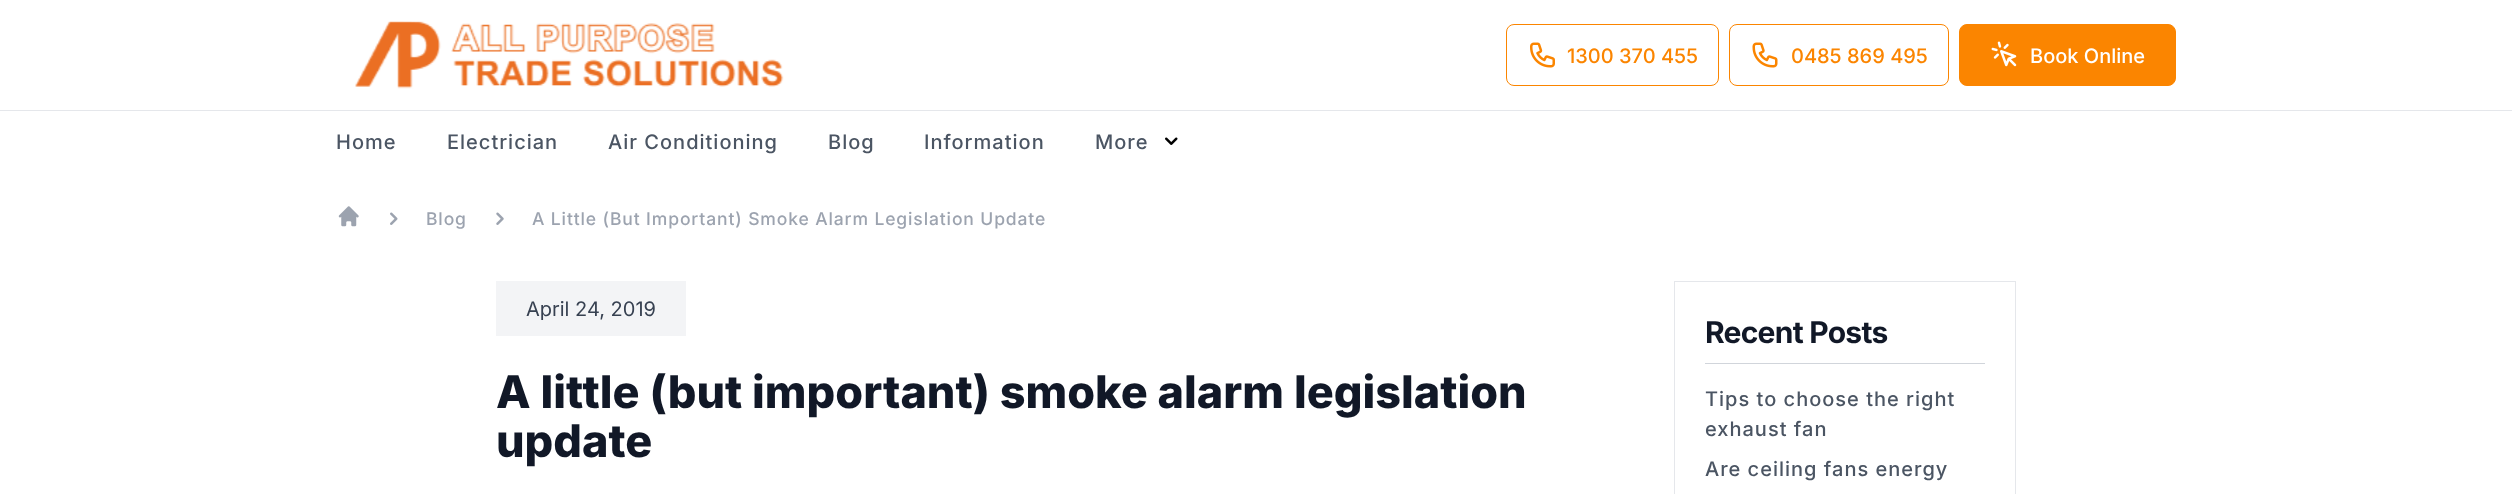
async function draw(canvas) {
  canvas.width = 2512
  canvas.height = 494
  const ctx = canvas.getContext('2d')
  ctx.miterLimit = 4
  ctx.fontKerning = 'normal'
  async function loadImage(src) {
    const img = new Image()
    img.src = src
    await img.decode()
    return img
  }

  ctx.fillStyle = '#fff'
  ctx.fillRect(0, 0, 2512, 494)
  ctx.drawImage(await loadImage('image0.png'), 355, 21, 429, 68)
  ctx.beginPath()
  ctx.roundRect(1506.5, 24.5, 212, 61, 7.5)
  ctx.strokeStyle = '#fb8500'
  ctx.stroke()
  ctx.drawImage(await loadImage('image1.png'), 1530, 42, 25, 26)
  ctx.font = '500 20px Inter'
  ctx.fillStyle = '#fb8500'
  ctx.fillText('1300 370 455', 1567, 63)
  ctx.beginPath()
  ctx.roundRect(1729.5, 24.5, 219, 61, 7.5)
  ctx.stroke()
  ctx.drawImage(await loadImage('image2.png'), 1752, 42, 26, 26)
  ctx.fillText('0485 869 495', 1791, 63)
  ctx.beginPath()
  ctx.roundRect(1959.5, 24.5, 216, 61, 7.5)
  ctx.fill()
  ctx.stroke()
  ctx.drawImage(await loadImage('image3.png'), 1991, 41, 26, 26)
  ctx.fillStyle = '#fff'
  ctx.fillText('Book Online', 2030, 63)
  ctx.fillStyle = '#e5e7eb'
  ctx.fillRect(0, 110, 2512, 1)
  ctx.letterSpacing = '1px'
  ctx.fillStyle = '#4b5563'
  ctx.fillText('Home', 336, 149)
  ctx.fillText('Electrician', 447, 149)
  ctx.fillText('Air Conditioning', 608, 149)
  ctx.fillText('Blog', 828, 149)
  ctx.fillText('Information', 924, 149)
  ctx.fillText('More', 1095, 149)
  ctx.drawImage(await loadImage('image4.png'), 1165, 137, 13, 8)
  ctx.drawImage(await loadImage('image5.png'), 338, 206, 21, 21)
  ctx.drawImage(await loadImage('image6.png'), 390, 212, 8, 13)
  ctx.letterSpacing = '0.88px'
  ctx.font = '500 17.5px Inter'
  ctx.fillStyle = '#9ca3af'
  ctx.fillText('Blog', 426, 225)
  ctx.drawImage(await loadImage('image7.png'), 496, 212, 8, 13)
  ctx.fillText('A Little (But Important) Smoke Alarm Legislation Update', 532, 225)
  ctx.fillStyle = '#f3f4f6'
  ctx.fillRect(496, 281, 190, 55)
  ctx.letterSpacing = '0px'
  ctx.font = '20px Inter'
  ctx.fillStyle = '#374151'
  ctx.fillText('April 24, 2019', 526, 316)
  ctx.font = '800 45px Inter'
  ctx.fillStyle = '#111827'
  ctx.fillText('A little (but important) smoke alarm legislation', 496, 408)
  ctx.fillText('update', 496, 457)
  ctx.strokeStyle = '#e5e7eb'
  ctx.strokeRect(1674.5, 281.5, 341, 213)
  ctx.letterSpacing = '-0.75px'
  ctx.font = 'bold 30px Inter'
  ctx.fillText('Recent Posts', 1705, 343)
  ctx.fillStyle = '#d1d5db'
  ctx.fillRect(1705, 363, 280, 1)
  ctx.letterSpacing = '1px'
  ctx.font = '500 20px Inter'
  ctx.fillStyle = '#4b5563'
  ctx.fillText('Tips to choose the right', 1705, 406)
  ctx.fillText('exhaust fan', 1705, 436)
  ctx.fillText('Are ceiling fans energy', 1705, 476)
}

draw(document.querySelector('canvas'))
